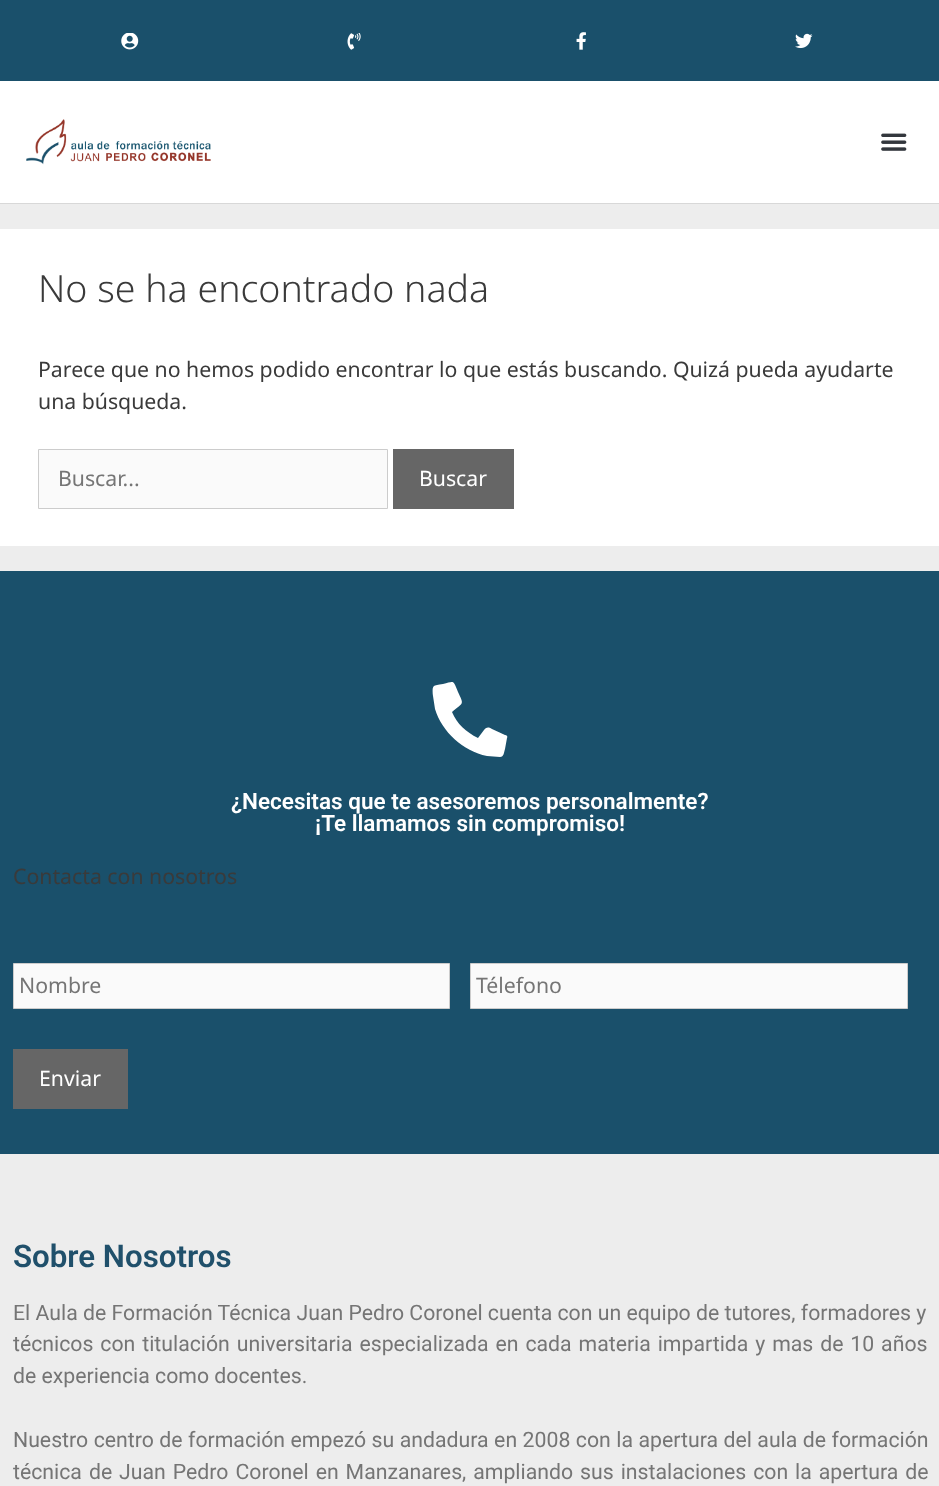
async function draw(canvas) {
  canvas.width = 939
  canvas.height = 1486
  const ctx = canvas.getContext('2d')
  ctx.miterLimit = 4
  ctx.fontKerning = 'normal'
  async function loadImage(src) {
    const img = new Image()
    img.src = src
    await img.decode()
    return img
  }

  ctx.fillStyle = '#ededed'
  ctx.fillRect(0, 0, 939, 1486)
  ctx.fillStyle = '#1a506b'
  ctx.fillRect(0, 0, 939, 81)
  ctx.drawImage(await loadImage('image0.png'), 121, 33, 18, 17)
  ctx.drawImage(await loadImage('image1.png'), 347, 33, 14, 17)
  ctx.drawImage(await loadImage('image2.png'), 576, 32, 10, 18)
  ctx.drawImage(await loadImage('image3.png'), 795, 33, 18, 16)
  ctx.fillStyle = '#fff'
  ctx.fillRect(0, 81, 939, 122)
  ctx.fillStyle = '#d8d8d8'
  ctx.fillRect(0, 203, 939, 1)
  ctx.drawImage(await loadImage('image4.png'), 26, 119, 185, 46)
  ctx.drawImage(await loadImage('image5.png'), 881, 133, 26, 18)
  ctx.fillStyle = '#fff'
  ctx.fillRect(0, 229, 939, 317)
  ctx.font = '300 37.5px Noto Sans'
  ctx.fillStyle = '#3a3a3a'
  ctx.fillText('No se ha encontrado nada', 38, 302)
  ctx.font = '21.25px Noto Sans'
  ctx.fillText('Parece que no hemos podido encontrar lo que estás buscando. Quizá pueda ayudarte', 38, 377)
  ctx.fillText('una búsqueda.', 38, 409)
  ctx.fillStyle = '#fafafa'
  ctx.beginPath()
  ctx.rect(38.5, 449.5, 349, 59)
  ctx.fill()
  ctx.strokeStyle = '#ccc'
  ctx.stroke()
  ctx.fillStyle = '#757575'
  ctx.fillText('Buscar...', 58, 486)
  ctx.fillStyle = '#666'
  ctx.fillRect(393, 449, 121, 60)
  ctx.fillStyle = '#fff'
  ctx.fillText('Buscar', 419, 486)
  ctx.fillStyle = '#1a506b'
  ctx.fillRect(0, 571, 939, 583)
  ctx.fillStyle = '#fff'
  ctx.beginPath()
  ctx.moveTo(505, 735)
  ctx.bezierCurveTo(507, 735, 508, 737, 507, 738)
  ctx.lineTo(505, 749)
  ctx.bezierCurveTo(504, 752, 504, 757, 500, 757)
  ctx.lineTo(487, 756)
  ctx.bezierCurveTo(463, 751, 442, 732, 435, 709)
  ctx.lineTo(433, 696)
  ctx.bezierCurveTo(432, 684, 433, 686, 443, 684)
  ctx.bezierCurveTo(455, 681, 453, 680, 458, 692)
  ctx.bezierCurveTo(464, 705, 464, 702, 452, 712)
  ctx.bezierCurveTo(457, 724, 466, 732, 478, 738)
  ctx.lineTo(484, 730)
  ctx.bezierCurveTo(487, 727, 488, 727, 492, 729)
  ctx.closePath()
  ctx.fill()
  ctx.font = '600 22.5px Roboto'
  ctx.fillText('¿Necesitas que te asesoremos personalmente?', 231, 809)
  ctx.fillText('¡Te llamamos sin compromiso!', 315, 831)
  ctx.font = '21.25px Noto Sans'
  ctx.fillStyle = '#3a3a3a'
  ctx.fillText('Contacta con nosotros', 13, 884)
  ctx.fillStyle = '#fafafa'
  ctx.beginPath()
  ctx.rect(13.5, 963.5, 436, 45)
  ctx.fill()
  ctx.stroke()
  ctx.fillStyle = '#757575'
  ctx.fillText('Nombre', 19, 993)
  ctx.fillStyle = '#fafafa'
  ctx.beginPath()
  ctx.rect(470.5, 963.5, 437, 45)
  ctx.fill()
  ctx.stroke()
  ctx.fillStyle = '#757575'
  ctx.fillText('Télefono', 476, 993)
  ctx.fillStyle = '#666'
  ctx.fillRect(13, 1049, 115, 60)
  ctx.fillStyle = '#fff'
  ctx.fillText('Enviar', 39, 1086)
  ctx.font = '600 31.25px Roboto'
  ctx.fillStyle = '#20506b'
  ctx.fillText('Sobre Nosotros', 13, 1267)
  ctx.font = '21.25px Roboto'
  ctx.fillStyle = '#757575'
  ctx.fillText('El Aula de Formación Técnica Juan Pedro Coronel cuenta con un equipo de tutores, formadores y', 13, 1320)
  ctx.wordSpacing = '1.6px'
  ctx.fillText('técnicos con titulación universitaria especializada en cada materia impartida y mas de 10 años', 13, 1351)
  ctx.wordSpacing = '0px'
  ctx.fillText('de experiencia como docentes.', 13, 1383)
  ctx.wordSpacing = '0.2px'
  ctx.fillText('Nuestro centro de formación empezó su andadura en 2008 con la apertura del aula de formación', 13, 1447)
  ctx.wordSpacing = '1.7px'
  ctx.fillText('técnica de Juan Pedro Coronel en Manzanares, ampliando sus instalaciones con la apertura de', 13, 1479)
}

draw(document.querySelector('canvas'))
